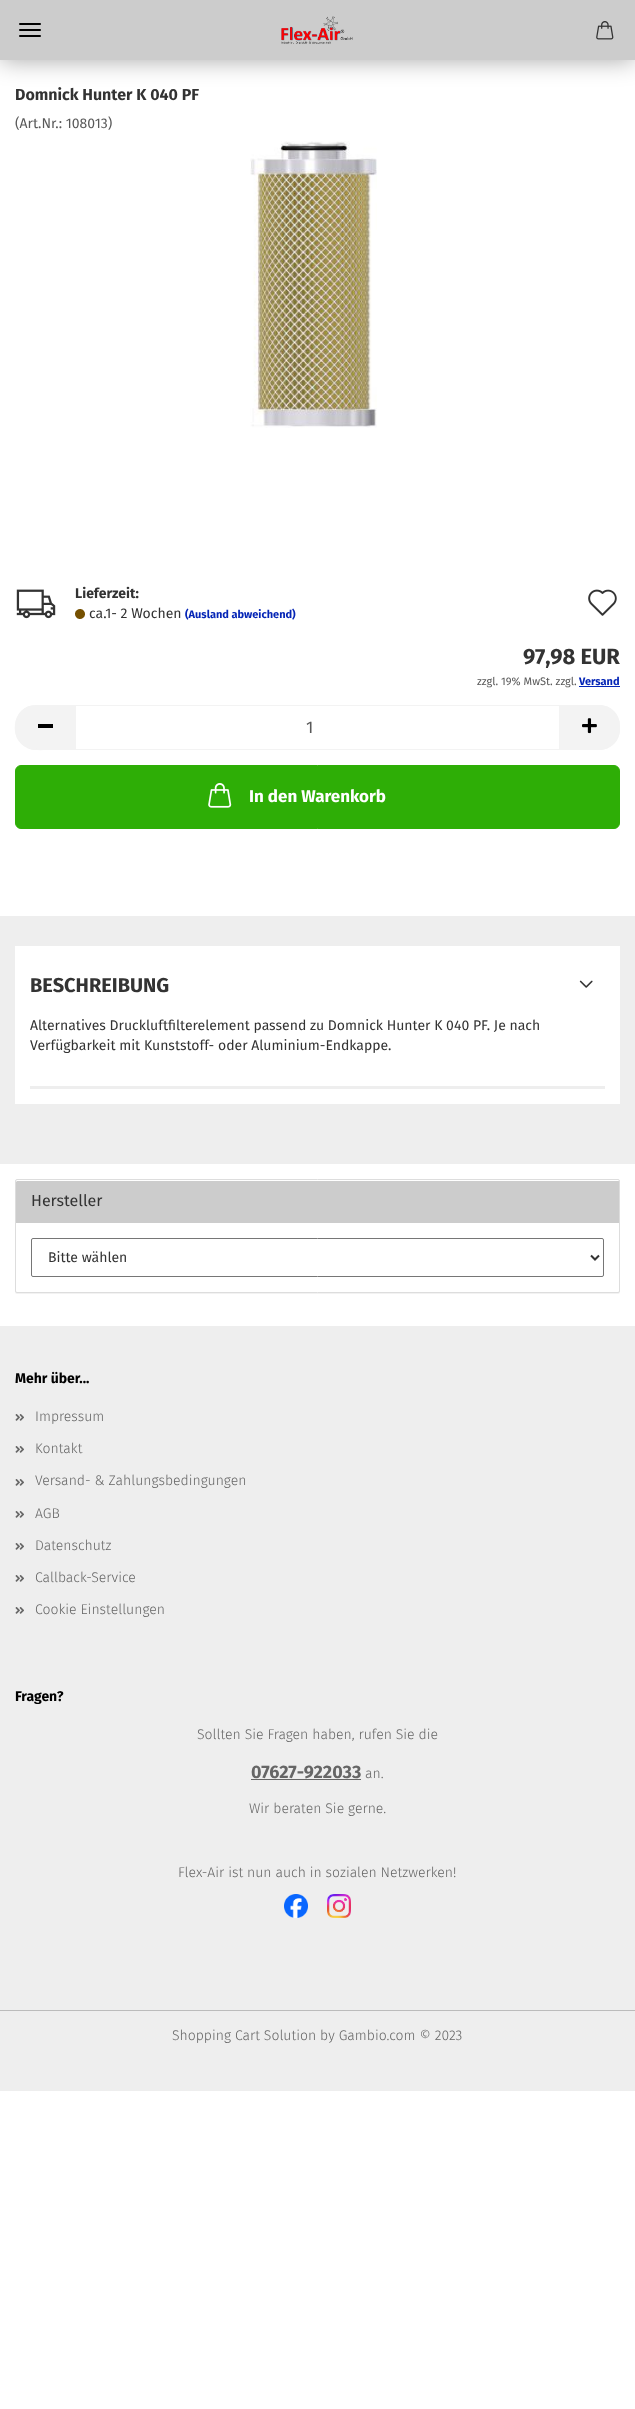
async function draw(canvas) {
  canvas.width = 635
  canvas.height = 2409
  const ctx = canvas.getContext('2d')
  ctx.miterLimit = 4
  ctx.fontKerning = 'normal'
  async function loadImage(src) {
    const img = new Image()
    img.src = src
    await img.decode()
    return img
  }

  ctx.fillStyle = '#fff'
  ctx.fillRect(0, 0, 635, 2409)
  ctx.fillStyle = '#00000059'
  ctx.filter = 'blur(12.5px)'
  ctx.beginPath()
  ctx.rect(0, 0, 635, 60)
  ctx.fill()
  ctx.filter = 'none'
  ctx.fillStyle = '#ccc'
  ctx.fillRect(0, 0, 635, 60)
  ctx.drawImage(await loadImage('image0.png'), 281, 16, 72, 28)
  ctx.drawImage(await loadImage('image1.png'), 596, 21, 18, 19)
  ctx.fillStyle = '#000'
  ctx.beginPath()
  ctx.roundRect(19, 29, 22, 2, 1)
  ctx.fill()
  ctx.beginPath()
  ctx.roundRect(19, 23, 22, 2, 1)
  ctx.fill()
  ctx.beginPath()
  ctx.roundRect(19, 35, 22, 2, 1)
  ctx.fill()
  ctx.font = 'bold 16px Fira Sans'
  ctx.fillStyle = '#333'
  ctx.fillText('Domnick Hunter K 040 PF', 15, 100)
  ctx.font = '14px Fira Sans'
  ctx.fillStyle = '#595959'
  ctx.fillText('(Art.Nr.: 108013)', 15, 128)
  ctx.drawImage(await loadImage('image2.png'), 250, 141, 127, 287)
  ctx.drawImage(await loadImage('image3.png'), 16, 589, 40, 30)
  ctx.font = 'bold 14px Fira Sans'
  ctx.fillStyle = '#333'
  ctx.fillText('Lieferzeit:', 75, 598)
  ctx.drawImage(await loadImage('image4.png'), 75, 609, 10, 10)
  ctx.font = '14px Fira Sans'
  ctx.fillText('ca.1- 2 Wochen', 89, 618)
  ctx.font = 'bold 11px Fira Sans'
  ctx.fillStyle = '#0525b6'
  ctx.fillText('(Ausland abweichend)', 185, 618)
  ctx.drawImage(await loadImage('image5.png'), 588, 589, 29, 27)
  ctx.font = 'bold 22px Fira Sans'
  ctx.fillStyle = '#333'
  ctx.fillText('97,98 EUR', 523, 664)
  ctx.font = '11px Fira Sans'
  ctx.fillStyle = '#595959'
  ctx.fillText('zzgl. 19% MwSt. zzgl.', 477, 685)
  ctx.font = 'bold 11px Fira Sans'
  ctx.fillStyle = '#0525b6'
  ctx.fillText('Versand', 579, 685)
  ctx.fillRect(579, 686, 41, 1)
  ctx.fillStyle = '#f3f3f3'
  ctx.beginPath()
  ctx.roundRect(15, 705, 60, 45, [21, 0, 0, 21])
  ctx.fill()
  ctx.beginPath()
  ctx.moveTo(36, 705)
  ctx.lineTo(75, 705)
  ctx.lineTo(75, 750)
  ctx.lineTo(49, 750)
  ctx.bezierCurveTo(42, 750, 34, 751, 28, 748)
  ctx.bezierCurveTo(7, 740, 12, 705, 36, 705)
  ctx.closePath()
  ctx.moveTo(36, 706)
  ctx.lineTo(75, 706)
  ctx.lineTo(75, 749)
  ctx.lineTo(49, 749)
  ctx.bezierCurveTo(42, 749, 35, 750, 28, 747)
  ctx.bezierCurveTo(8, 739, 14, 706, 36, 706)
  ctx.closePath()
  ctx.fill('evenodd')
  ctx.fillStyle = '#000'
  ctx.fillRect(38, 724, 15, 4)
  ctx.strokeStyle = '#f3f3f3'
  ctx.strokeRect(75.5, 705.5, 484, 44)
  ctx.font = '17px Fira Sans'
  ctx.fillStyle = '#595959'
  ctx.fillText('1', 306, 733)
  ctx.fillStyle = '#f3f3f3'
  ctx.beginPath()
  ctx.roundRect(560, 705, 60, 45, [0, 21, 21, 0])
  ctx.fill()
  ctx.beginPath()
  ctx.moveTo(560, 705)
  ctx.lineTo(599, 705)
  ctx.bezierCurveTo(611, 705, 620, 714, 620, 726)
  ctx.lineTo(620, 729)
  ctx.bezierCurveTo(620, 741, 611, 750, 599, 750)
  ctx.lineTo(560, 750)
  ctx.closePath()
  ctx.moveTo(560, 706)
  ctx.lineTo(599, 706)
  ctx.bezierCurveTo(610, 706, 619, 715, 619, 726)
  ctx.lineTo(619, 729)
  ctx.bezierCurveTo(619, 740, 610, 749, 599, 749)
  ctx.lineTo(560, 749)
  ctx.closePath()
  ctx.fill('evenodd')
  ctx.drawImage(await loadImage('image6.png'), 582, 718, 15, 16)
  ctx.fillStyle = '#2eae06'
  ctx.beginPath()
  ctx.roundRect(15.5, 765.5, 604, 63, 5.5)
  ctx.fill()
  ctx.strokeStyle = '#2eae06'
  ctx.stroke()
  ctx.drawImage(await loadImage('image7.png'), 208, 783, 24, 25)
  ctx.font = 'bold 17px Fira Sans'
  ctx.fillStyle = '#fff'
  ctx.fillText('In den Warenkorb', 249, 802)
  ctx.fillStyle = '#eee'
  ctx.fillRect(0, 916, 635, 248)
  ctx.fillStyle = '#fff'
  ctx.fillRect(15, 946, 605, 158)
  ctx.font = 'bold 20px Fira Sans'
  ctx.fillStyle = '#333'
  ctx.fillText('BESCHREIBUNG', 30, 992)
  ctx.drawImage(await loadImage('image8.png'), 579, 980, 14, 8)
  ctx.fillStyle = '#eee'
  ctx.fillRect(30, 1086, 575, 3)
  ctx.font = '14px Fira Sans'
  ctx.fillStyle = '#333'
  ctx.fillText('Alternatives Druckluftfilterelement passend zu Domnick Hunter K 040 PF. Je nach', 30, 1030)
  ctx.fillText('Verfügbarkeit mit Kunststoff- oder Aluminium-Endkappe.', 30, 1050)
  ctx.fillStyle = '#0000000d'
  ctx.filter = 'blur(0.5px)'
  ctx.beginPath()
  ctx.roundRect(15, 1180, 605, 114, 2)
  ctx.fill()
  ctx.filter = 'none'
  ctx.fillStyle = '#fff'
  ctx.beginPath()
  ctx.roundRect(15.5, 1179.5, 604, 113, 1.5)
  ctx.fill()
  ctx.strokeStyle = '#ddd'
  ctx.stroke()
  ctx.fillStyle = '#ccc'
  ctx.beginPath()
  ctx.roundRect(16, 1180, 603, 43, [1, 1, 0, 0])
  ctx.fill()
  ctx.fillStyle = '#fff'
  ctx.beginPath()
  ctx.moveTo(17, 1181)
  ctx.lineTo(618, 1181)
  ctx.bezierCurveTo(619, 1181, 619, 1181, 619, 1182)
  ctx.bezierCurveTo(619, 1181, 619, 1180, 618, 1180)
  ctx.lineTo(17, 1180)
  ctx.bezierCurveTo(16, 1180, 16, 1181, 16, 1182)
  ctx.closePath()
  ctx.fill()
  ctx.font = '16px Fira Sans'
  ctx.fillStyle = '#333'
  ctx.fillText('Hersteller', 31, 1206)
  ctx.beginPath()
  ctx.roundRect(31.5, 1238.5, 572, 38, 1.5)
  ctx.strokeStyle = '#767676'
  ctx.stroke()
  ctx.beginPath()
  ctx.moveTo(591, 1255.5)
  ctx.lineTo(595, 1259.5)
  ctx.lineTo(599, 1255.5)
  ctx.strokeStyle = '#333'
  ctx.lineWidth = 2
  ctx.stroke()
  ctx.font = '14px Fira Sans'
  ctx.fillText('Bitte wählen', 48, 1262)
  ctx.fillStyle = '#eee'
  ctx.fillRect(0, 1326, 635, 765)
  ctx.fillStyle = '#bbb'
  ctx.fillRect(0, 2010, 635, 1)
  ctx.font = 'bold 14px Fira Sans'
  ctx.fillStyle = '#000'
  ctx.fillText('Mehr über...', 15, 1383)
  ctx.drawImage(await loadImage('image9.png'), 15, 1414, 9, 7)
  ctx.font = '300 14px Fira Sans'
  ctx.fillStyle = '#666'
  ctx.fillText('Impressum', 35, 1421)
  ctx.drawImage(await loadImage('image9.png'), 15, 1446, 9, 7)
  ctx.fillText('Kontakt', 35, 1453)
  ctx.drawImage(await loadImage('image9.png'), 15, 1479, 9, 7)
  ctx.fillText('Versand- & Zahlungsbedingungen', 35, 1485)
  ctx.drawImage(await loadImage('image9.png'), 15, 1511, 9, 7)
  ctx.fillText('AGB', 35, 1518)
  ctx.drawImage(await loadImage('image9.png'), 15, 1543, 9, 7)
  ctx.fillText('Datenschutz', 35, 1550)
  ctx.drawImage(await loadImage('image9.png'), 15, 1575, 9, 7)
  ctx.fillText('Callback-Service', 35, 1582)
  ctx.drawImage(await loadImage('image9.png'), 15, 1607, 9, 7)
  ctx.fillText('Cookie Einstellungen', 35, 1614)
  ctx.font = 'bold 14px Fira Sans'
  ctx.fillStyle = '#000'
  ctx.fillText('Fragen?', 15, 1701)
  ctx.font = '300 14px Fira Sans'
  ctx.fillStyle = '#666'
  ctx.fillText('Sollten Sie Fragen haben, rufen Sie die', 197, 1739)
  ctx.font = 'bold 18px Fira Sans'
  ctx.fillText('07627-922033', 251, 1778)
  ctx.fillRect(251, 1779, 110, 1)
  ctx.font = '300 14px Fira Sans'
  ctx.fillText('an.', 365, 1778)
  ctx.fillText('Wir beraten Sie gerne.', 249, 1813)
  ctx.fillText('Flex-Air ist nun auch in sozialen Netzwerken!', 178, 1877)
  ctx.drawImage(await loadImage('image10.png'), 284, 1894, 24, 24)
  ctx.drawImage(await loadImage('image11.png'), 327, 1894, 24, 24)
  ctx.fillText('Shopping Cart Solution by Gambio.com © 2023', 172, 2040)
}

draw(document.querySelector('canvas'))
